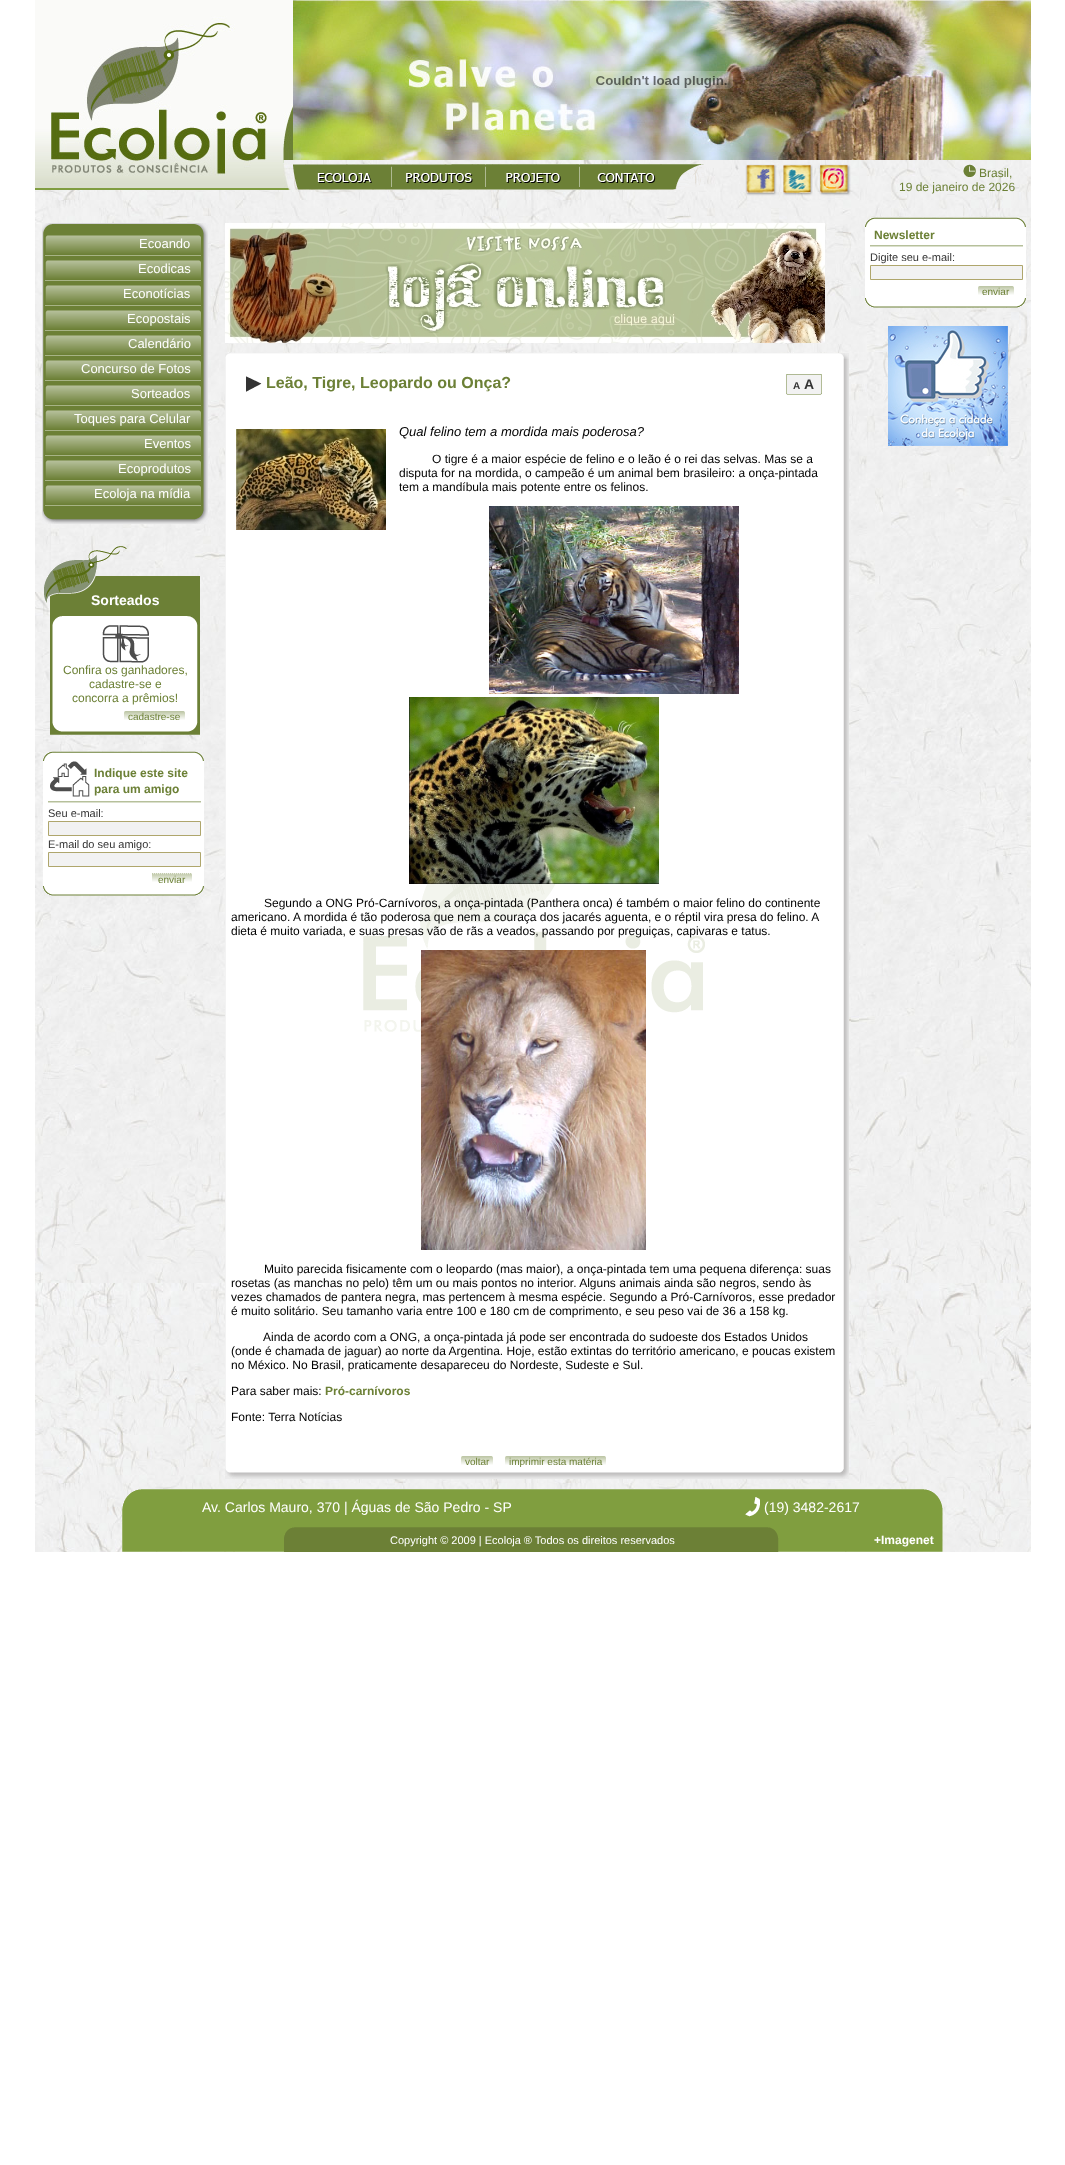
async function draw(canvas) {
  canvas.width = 1065
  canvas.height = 2165
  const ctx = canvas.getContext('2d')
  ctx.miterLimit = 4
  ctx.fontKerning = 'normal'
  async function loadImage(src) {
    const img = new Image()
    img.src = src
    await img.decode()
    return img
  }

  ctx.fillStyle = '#fff'
  ctx.fillRect(0, 0, 1065, 2165)
  ctx.drawImage(await loadImage('image0.png'), 35, 160, 996, 1392)
  ctx.drawImage(await loadImage('image1.png'), 35, 0, 258, 190)
  ctx.drawImage(await loadImage('image2.png'), 293, 0, 738, 160)
  ctx.drawImage(await loadImage('image3.png'), 590, 71, 143, 18)
  ctx.drawImage(await loadImage('image4.png'), 293, 164, 6, 26)
  ctx.drawImage(await loadImage('image5.png'), 299, 164, 92, 26)
  ctx.drawImage(await loadImage('image6.png'), 391, 164, 1, 26)
  ctx.drawImage(await loadImage('image7.png'), 392, 164, 93, 26)
  ctx.drawImage(await loadImage('image6.png'), 485, 164, 1, 26)
  ctx.drawImage(await loadImage('image8.png'), 486, 164, 93, 26)
  ctx.drawImage(await loadImage('image6.png'), 579, 164, 1, 26)
  ctx.drawImage(await loadImage('image9.png'), 580, 164, 92, 26)
  ctx.drawImage(await loadImage('image10.png'), 672, 164, 32, 26)
  ctx.drawImage(await loadImage('image11.png'), 745, 164, 32, 32)
  ctx.drawImage(await loadImage('image12.png'), 783, 164, 30, 32)
  ctx.drawImage(await loadImage('image13.png'), 819, 164, 32, 32)
  ctx.drawImage(await loadImage('image14.png'), 963, 164, 13, 13)
  ctx.font = '12px Liberation Sans'
  ctx.fillStyle = '#6c8036'
  ctx.fillText('Brasil,', 979, 177)
  ctx.fillText('19 de janeiro de 2026', 899, 191)
  ctx.drawImage(await loadImage('image15.png'), 42, 223, 166, 12)
  ctx.drawImage(await loadImage('image16.png'), 42, 235, 166, 275)
  ctx.drawImage(await loadImage('image17.png'), 45, 235, 156, 19)
  ctx.fillStyle = '#a7b386'
  ctx.fillRect(45, 255, 156, 1)
  ctx.font = '13px Liberation Sans'
  ctx.fillStyle = '#fff'
  ctx.fillText('Ecoando', 139, 248)
  ctx.drawImage(await loadImage('image17.png'), 45, 260, 156, 19)
  ctx.fillStyle = '#a7b386'
  ctx.fillRect(45, 280, 156, 1)
  ctx.fillStyle = '#fff'
  ctx.fillText('Ecodicas', 138, 273)
  ctx.drawImage(await loadImage('image17.png'), 45, 285, 156, 19)
  ctx.fillStyle = '#a7b386'
  ctx.fillRect(45, 305, 156, 1)
  ctx.fillStyle = '#fff'
  ctx.fillText('Econotícias', 123, 298)
  ctx.drawImage(await loadImage('image17.png'), 45, 310, 156, 19)
  ctx.fillStyle = '#a7b386'
  ctx.fillRect(45, 330, 156, 1)
  ctx.fillStyle = '#fff'
  ctx.fillText('Ecopostais', 127, 323)
  ctx.drawImage(await loadImage('image17.png'), 45, 335, 156, 19)
  ctx.fillStyle = '#a7b386'
  ctx.fillRect(45, 355, 156, 1)
  ctx.fillStyle = '#fff'
  ctx.fillText('Calendário', 128, 348)
  ctx.drawImage(await loadImage('image17.png'), 45, 360, 156, 19)
  ctx.fillStyle = '#a7b386'
  ctx.fillRect(45, 380, 156, 1)
  ctx.fillStyle = '#fff'
  ctx.fillText('Concurso de Fotos', 81, 373)
  ctx.drawImage(await loadImage('image17.png'), 45, 385, 156, 19)
  ctx.fillStyle = '#a7b386'
  ctx.fillRect(45, 405, 156, 1)
  ctx.fillStyle = '#fff'
  ctx.fillText('Sorteados', 131, 398)
  ctx.drawImage(await loadImage('image17.png'), 45, 410, 156, 19)
  ctx.fillStyle = '#a7b386'
  ctx.fillRect(45, 430, 156, 1)
  ctx.fillStyle = '#fff'
  ctx.fillText('Toques para Celular', 74, 423)
  ctx.drawImage(await loadImage('image17.png'), 45, 435, 156, 19)
  ctx.fillStyle = '#a7b386'
  ctx.fillRect(45, 455, 156, 1)
  ctx.fillStyle = '#fff'
  ctx.fillText('Eventos', 144, 448)
  ctx.drawImage(await loadImage('image17.png'), 45, 460, 156, 19)
  ctx.fillStyle = '#a7b386'
  ctx.fillRect(45, 480, 156, 1)
  ctx.fillStyle = '#fff'
  ctx.fillText('Ecoprodutos', 118, 473)
  ctx.drawImage(await loadImage('image17.png'), 45, 485, 156, 19)
  ctx.fillStyle = '#a7b386'
  ctx.fillRect(45, 505, 156, 1)
  ctx.fillStyle = '#fff'
  ctx.fillText('Ecoloja na mídia', 94, 498)
  ctx.drawImage(await loadImage('image18.png'), 42, 510, 166, 14)
  ctx.drawImage(await loadImage('image19.png'), 44, 546, 156, 79)
  ctx.font = 'bold 14px Liberation Sans'
  ctx.fillText('Sorteados', 91, 605)
  ctx.drawImage(await loadImage('image20.png'), 50, 625, 150, 98)
  ctx.drawImage(await loadImage('image21.png'), 102, 625, 47, 38)
  ctx.font = '12px Liberation Sans'
  ctx.fillStyle = '#6c8036'
  ctx.fillText('Confira os ganhadores,', 63, 674)
  ctx.fillText('cadastre-se e', 89, 688)
  ctx.fillText('concorra a prêmios!', 72, 702)
  ctx.drawImage(await loadImage('image22.png'), 124, 711, 61, 9)
  ctx.drawImage(await loadImage('image23.png'), 124, 711, 2, 2)
  ctx.drawImage(await loadImage('image24.png'), 183, 711, 2, 2)
  ctx.font = '10px Liberation Sans'
  ctx.fillText('cadastre-se', 128, 720)
  ctx.drawImage(await loadImage('image25.png'), 50, 723, 150, 12)
  ctx.drawImage(await loadImage('image26.png'), 43, 751, 161, 10)
  ctx.fillStyle = '#fff'
  ctx.fillRect(43, 761, 161, 125)
  ctx.drawImage(await loadImage('image27.png'), 50, 761, 40, 36)
  ctx.font = 'bold 12px Liberation Sans'
  ctx.fillStyle = '#6c8036'
  ctx.fillText('Indique este site', 94, 777)
  ctx.fillText('para um amigo', 94, 793)
  ctx.drawImage(await loadImage('image28.png'), 48, 801, 153, 2)
  ctx.font = '11px Liberation Sans'
  ctx.fillStyle = '#333'
  ctx.fillText('Seu e-mail:', 48, 817)
  ctx.fillStyle = '#f2f2f2'
  ctx.beginPath()
  ctx.rect(48.5, 821.5, 152, 14)
  ctx.fill()
  ctx.strokeStyle = '#afa66c'
  ctx.stroke()
  ctx.fillStyle = '#333'
  ctx.fillText('E-mail do seu amigo:', 48, 848)
  ctx.fillStyle = '#f2f2f2'
  ctx.beginPath()
  ctx.rect(48.5, 852.5, 152, 14)
  ctx.fill()
  ctx.stroke()
  ctx.drawImage(await loadImage('image29.png'), 152, 875, 40, 7)
  ctx.drawImage(await loadImage('image30.png'), 152, 873, 40, 2)
  ctx.font = '10px Liberation Sans'
  ctx.fillStyle = '#6c8036'
  ctx.fillText('enviar', 158, 883)
  ctx.drawImage(await loadImage('image31.png'), 43, 886, 161, 10)
  ctx.drawImage(await loadImage('image32.png'), 225, 223, 600, 120)
  ctx.drawImage(await loadImage('image33.png'), 225, 353, 624, 6)
  ctx.drawImage(await loadImage('image34.png'), 225, 359, 624, 1108)
  ctx.drawImage(await loadImage('image35.png'), 363, 794, 342, 239)
  ctx.drawImage(await loadImage('image36.png'), 246, 376, 16, 16)
  ctx.font = 'bold 16px Liberation Sans'
  ctx.fillText('Leão, Tigre, Leopardo ou Onça?', 266, 388)
  ctx.drawImage(await loadImage('image37.png'), 786, 374, 36, 21)
  ctx.font = 'bold 10px Liberation Sans'
  ctx.fillStyle = '#333'
  ctx.fillText('A', 793, 389)
  ctx.font = 'bold 14px Liberation Sans'
  ctx.fillText('A', 804, 389)
  ctx.drawImage(await loadImage('image38.png'), 236, 429, 150, 101)
  ctx.font = 'italic 13px Liberation Sans'
  ctx.fillStyle = '#000'
  ctx.fillText('Qual felino tem a mordida mais poderosa?', 399, 436)
  ctx.font = '12px Liberation Sans'
  ctx.fillText('O tigre é a maior espécie de felino e o leão é o rei das selvas. Mas se a', 432, 463)
  ctx.fillText('disputa for na mordida, o campeão é um animal bem brasileiro: a onça-pintada', 399, 477)
  ctx.fillText('tem a mandíbula mais potente entre os felinos.', 399, 491)
  ctx.drawImage(await loadImage('image39.png'), 489, 506, 250, 188)
  ctx.drawImage(await loadImage('image40.png'), 409, 697, 250, 187)
  ctx.fillText('Segundo a ONG Pró-Carnívoros, a onça-pintada (Panthera onca) é também o maior felino do continente', 264, 907)
  ctx.fillText('americano. A mordida é tão poderosa que nem a couraça dos jacarés aguenta, e o réptil vira presa do felino. A', 231, 921)
  ctx.fillText('dieta é muito variada, e suas presas vão de rãs a veados, passando por preguiças, capivaras e tatus.', 231, 935)
  ctx.drawImage(await loadImage('image41.png'), 421, 950, 225, 300)
  ctx.fillText('Muito parecida fisicamente com o leopardo (mas maior), a onça-pintada tem uma pequena diferença: suas', 264, 1273)
  ctx.fillText('rosetas (as manchas no pelo) têm um ou mais pontos no interior. Alguns animais ainda são negros, sendo às', 231, 1287)
  ctx.fillText('vezes chamados de pantera negra, mas pertencem à mesma espécie. Segundo a Pró-Carnívoros, esse predador', 231, 1301)
  ctx.fillText('é muito solitário. Seu tamanho varia entre 100 e 180 cm de comprimento, e seu peso vai de 36 a 158 kg.', 231, 1315)
  ctx.fillText('Ainda de acordo com a ONG, a onça-pintada já pode ser encontrada do sudoeste dos Estados Unidos', 263, 1341)
  ctx.fillText('(onde é chamada de jaguar) ao norte da Argentina. Hoje, estão extintas do território americano, e poucas existem', 231, 1355)
  ctx.fillText('no México. No Brasil, praticamente desapareceu do Nordeste, Sudeste e Sul.', 231, 1369)
  ctx.fillText('Para saber mais:', 231, 1395)
  ctx.font = 'bold 12px Liberation Sans'
  ctx.fillStyle = '#6c8036'
  ctx.fillText('Pró-carnívoros', 325, 1395)
  ctx.font = '12px Liberation Sans'
  ctx.fillStyle = '#000'
  ctx.fillText('Fonte: Terra Notícias', 231, 1421)
  ctx.drawImage(await loadImage('image42.png'), 461, 1456, 32, 9)
  ctx.drawImage(await loadImage('image23.png'), 461, 1456, 2, 2)
  ctx.drawImage(await loadImage('image24.png'), 491, 1456, 2, 2)
  ctx.font = '10px Liberation Sans'
  ctx.fillStyle = '#6c8036'
  ctx.fillText('voltar', 465, 1465)
  ctx.drawImage(await loadImage('image43.png'), 505, 1456, 101, 9)
  ctx.drawImage(await loadImage('image23.png'), 505, 1456, 2, 2)
  ctx.drawImage(await loadImage('image24.png'), 604, 1456, 2, 2)
  ctx.drawImage(await loadImage('image44.png'), 225, 1467, 624, 12)
  ctx.fillText('imprimir esta matéria', 509, 1465)
  ctx.drawImage(await loadImage('image45.png'), 865, 217, 161, 10)
  ctx.fillStyle = '#fff'
  ctx.fillRect(865, 227, 161, 71)
  ctx.font = 'bold 12px Liberation Sans'
  ctx.fillStyle = '#6c8036'
  ctx.fillText('Newsletter', 874, 239)
  ctx.drawImage(await loadImage('image28.png'), 870, 245, 153, 2)
  ctx.font = '11px Liberation Sans'
  ctx.fillStyle = '#333'
  ctx.fillText('Digite seu e-mail:', 870, 261)
  ctx.fillStyle = '#f2f2f2'
  ctx.beginPath()
  ctx.rect(870.5, 265.5, 152, 14)
  ctx.fill()
  ctx.stroke()
  ctx.drawImage(await loadImage('image46.png'), 978, 286, 36, 9)
  ctx.drawImage(await loadImage('image23.png'), 978, 286, 2, 2)
  ctx.drawImage(await loadImage('image24.png'), 1012, 286, 2, 2)
  ctx.font = '10px Liberation Sans'
  ctx.fillStyle = '#6c8036'
  ctx.fillText('enviar', 982, 295)
  ctx.drawImage(await loadImage('image47.png'), 865, 298, 161, 10)
  ctx.drawImage(await loadImage('image48.png'), 888, 326, 120, 120)
  ctx.drawImage(await loadImage('image49.png'), 122, 1489, 821, 63)
  ctx.font = '14px Liberation Sans'
  ctx.fillStyle = '#fff'
  ctx.fillText('Av. Carlos Mauro, 370 | Águas de São Pedro - SP', 202, 1512)
  ctx.fillText('(19) 3482-2617', 764, 1512)
  ctx.font = '11px Liberation Sans'
  ctx.fillText('Copyright © 2009 | Ecoloja ® Todos os direitos reservados', 390, 1544)
  ctx.font = 'bold 12px Liberation Sans'
  ctx.fillText('+Imagenet', 874, 1544)
}

draw(document.querySelector('canvas'))
